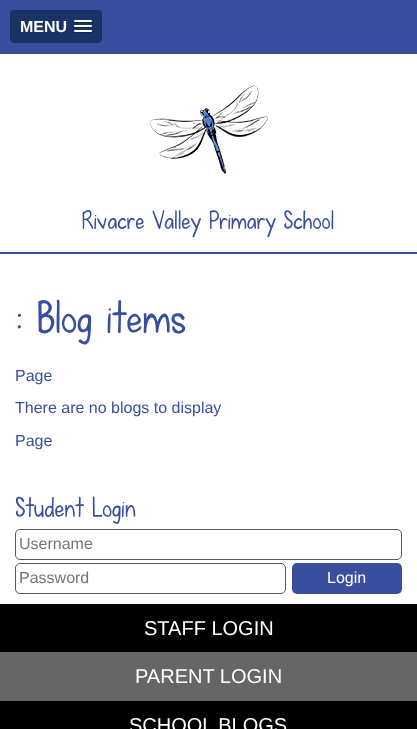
async function draw(canvas) {
  canvas.width = 417
  canvas.height = 729
  const ctx = canvas.getContext('2d')
  ctx.miterLimit = 4
  ctx.fontKerning = 'normal'
  async function loadImage(src) {
    const img = new Image()
    img.src = src
    await img.decode()
    return img
  }

  ctx.fillStyle = '#fff'
  ctx.fillRect(0, 0, 417, 729)
  ctx.fillStyle = '#394f9e'
  ctx.fillRect(0, 0, 417, 54)
  ctx.fillStyle = '#193366'
  ctx.beginPath()
  ctx.roundRect(10, 10, 92, 33, 4)
  ctx.fill()
  ctx.font = 'bold 16px Liberation Sans'
  ctx.fillStyle = '#fff'
  ctx.fillText('MENU', 20, 32)
  ctx.fillStyle = '#13264d'
  ctx.beginPath()
  ctx.moveTo(74, 21.5)
  ctx.bezierCurveTo(73, 23.5, 77.5, 23, 77.5, 23)
  ctx.lineTo(88.5, 23)
  ctx.bezierCurveTo(88.5, 23, 93, 23.5, 92, 21.5)
  ctx.bezierCurveTo(91, 22.5, 84.5, 22, 83, 22)
  ctx.bezierCurveTo(81.5, 22, 75, 22.5, 74, 21.5)
  ctx.closePath()
  ctx.fill()
  ctx.fillStyle = '#fff'
  ctx.beginPath()
  ctx.roundRect(74, 20, 18, 2, 1)
  ctx.fill()
  ctx.fillStyle = '#13264d'
  ctx.beginPath()
  ctx.moveTo(74, 26.5)
  ctx.bezierCurveTo(73, 28.5, 77.5, 28, 77.5, 28)
  ctx.lineTo(88.5, 28)
  ctx.bezierCurveTo(88.5, 28, 93, 28.5, 92, 26.5)
  ctx.bezierCurveTo(91, 27.5, 84.5, 27, 83, 27)
  ctx.bezierCurveTo(81.5, 27, 75, 27.5, 74, 26.5)
  ctx.closePath()
  ctx.fill()
  ctx.fillStyle = '#fff'
  ctx.beginPath()
  ctx.roundRect(74, 25, 18, 2, 1)
  ctx.fill()
  ctx.fillStyle = '#13264d'
  ctx.beginPath()
  ctx.moveTo(74, 31.5)
  ctx.bezierCurveTo(73, 33.5, 77.5, 33, 77.5, 33)
  ctx.lineTo(88.5, 33)
  ctx.bezierCurveTo(88.5, 33, 93, 33.5, 92, 31.5)
  ctx.bezierCurveTo(91, 32.5, 84.5, 32, 83, 32)
  ctx.bezierCurveTo(81.5, 32, 75, 32.5, 74, 31.5)
  ctx.closePath()
  ctx.fill()
  ctx.fillStyle = '#fff'
  ctx.beginPath()
  ctx.roundRect(74, 30, 18, 2, 1)
  ctx.fill()
  ctx.drawImage(await loadImage('image0.png'), 150, 85, 118, 89)
  ctx.font = '26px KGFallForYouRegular'
  ctx.fillStyle = '#394f9e'
  ctx.fillText('Rivacre Valley Primary School', 82, 229)
  ctx.fillRect(0, 252, 417, 2)
  ctx.font = '46px KGFallForYouRegular'
  ctx.fillText(': Blog items', 15, 333)
  ctx.font = '16px Liberation Sans'
  ctx.fillText('Page', 15, 381)
  ctx.fillText('There are no blogs to display', 15, 413)
  ctx.fillText('Page', 15, 446)
  ctx.font = '28px KGFallForYouRegular'
  ctx.fillText('Student Login', 15, 517)
  ctx.beginPath()
  ctx.roundRect(15.5, 529.5, 386, 30, 4.5)
  ctx.strokeStyle = '#575757'
  ctx.stroke()
  ctx.font = '16px Liberation Sans'
  ctx.fillStyle = '#757575'
  ctx.fillText('Username', 19, 549)
  ctx.beginPath()
  ctx.roundRect(15.5, 563.5, 270, 30, 4.5)
  ctx.stroke()
  ctx.fillText('Password', 19, 583)
  ctx.fillStyle = '#394f9e'
  ctx.beginPath()
  ctx.roundRect(292, 563, 110, 31, 5)
  ctx.fill()
  ctx.fillStyle = '#fff'
  ctx.fillText('Login', 327, 583)
  ctx.fillStyle = '#000'
  ctx.fillRect(0, 604, 417, 48)
  ctx.font = '20px Liberation Sans'
  ctx.fillStyle = '#fff'
  ctx.fillText('STAFF LOGIN', 144, 635)
  ctx.fillStyle = '#666'
  ctx.fillRect(0, 652, 417, 49)
  ctx.fillStyle = '#fff'
  ctx.fillText('PARENT LOGIN', 135, 683)
  ctx.fillStyle = '#000'
  ctx.fillRect(0, 701, 417, 28)
  ctx.fillStyle = '#fff'
  ctx.fillText('SCHOOL BLOGS', 129, 732)
}

draw(document.querySelector('canvas'))
